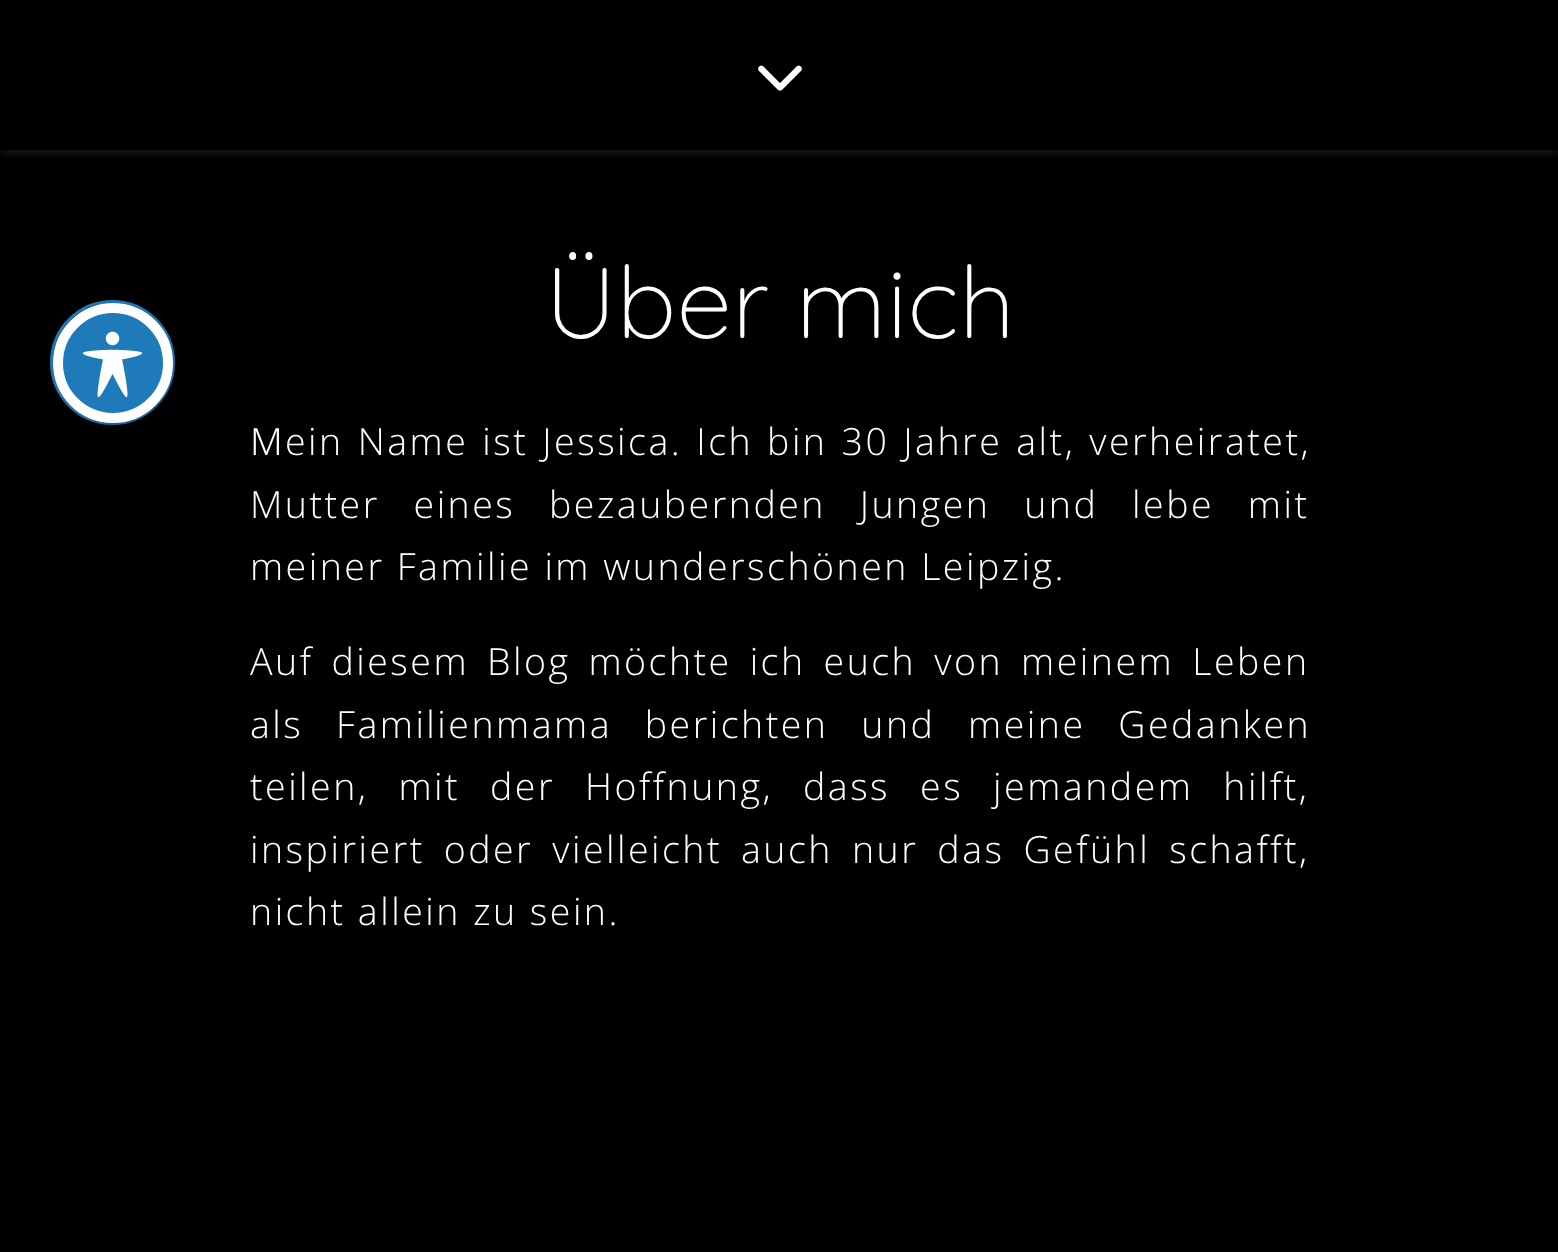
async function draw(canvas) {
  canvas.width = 1558
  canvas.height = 1252
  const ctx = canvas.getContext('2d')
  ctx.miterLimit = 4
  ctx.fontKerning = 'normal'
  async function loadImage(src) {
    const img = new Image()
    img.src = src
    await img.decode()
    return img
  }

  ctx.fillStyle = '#000'
  ctx.fillRect(0, 0, 1558, 1252)
  ctx.beginPath()
  ctx.arc(112.5, 362.5, 61, 0, 2 * Math.PI)
  ctx.strokeStyle = '#1e7ab9'
  ctx.lineWidth = 3
  ctx.stroke()
  ctx.fillStyle = '#00000033'
  ctx.filter = 'blur(20px)'
  ctx.beginPath()
  ctx.roundRect(68, 323, 120, 120, 60)
  ctx.fill()
  ctx.filter = 'none'
  ctx.fillStyle = '#1e7ab9'
  ctx.beginPath()
  ctx.arc(113, 363, 55, 0, 2 * Math.PI)
  ctx.fill()
  ctx.strokeStyle = '#fff'
  ctx.lineWidth = 10
  ctx.stroke()
  ctx.drawImage(await loadImage('image0.png'), 82, 331, 61, 67)
  ctx.save()
  ctx.beginPath()
  ctx.rect(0, 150, 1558, 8)
  ctx.clip()
  ctx.fillStyle = '#ffffff1a'
  ctx.filter = 'blur(6px)'
  ctx.beginPath()
  ctx.rect(0, 3, 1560, 150)
  ctx.fill()
  ctx.filter = 'none'
  ctx.restore()
  ctx.drawImage(await loadImage('image1.png'), 758, 65, 44, 26)
  ctx.font = '300 100px Quicksand'
  ctx.fillStyle = '#fff'
  ctx.fillText('Über mich', 545, 338)
  ctx.letterSpacing = '2.5px'
  ctx.font = '300 37.5px Noto Sans'
  ctx.fillText('M', 250, 455)
  ctx.wordSpacing = '1.75px'
  ctx.font = '300 37.5px Open Sans'
  ctx.fillText('ein Name ist Jessica. Ich bin 30 Jahre alt, verheiratet,', 285, 455)
  ctx.wordSpacing = '21.5px'
  ctx.fillText('Mutter eines bezaubernden Jungen und lebe mit', 250, 518)
  ctx.wordSpacing = '0px'
  ctx.fillText('meiner Familie im wunderschönen Leipzig.', 250, 580)
  ctx.wordSpacing = '5.75px'
  ctx.fillText('Auf diesem Blog möchte ich euch von meinem Leben', 250, 675)
  ctx.wordSpacing = '20.5px'
  ctx.fillText('als Familienmama berichten und meine Gedanken', 250, 738)
  ctx.wordSpacing = '17.75px'
  ctx.fillText('teilen, mit der Hoffnung, dass es jemandem hilft,', 250, 800)
  ctx.wordSpacing = '6.75px'
  ctx.fillText('inspiriert oder vielleicht auch nur das Gefühl schafft,', 250, 863)
  ctx.wordSpacing = '0px'
  ctx.fillText('nicht allein zu sein.', 250, 925)
}

draw(document.querySelector('canvas'))
